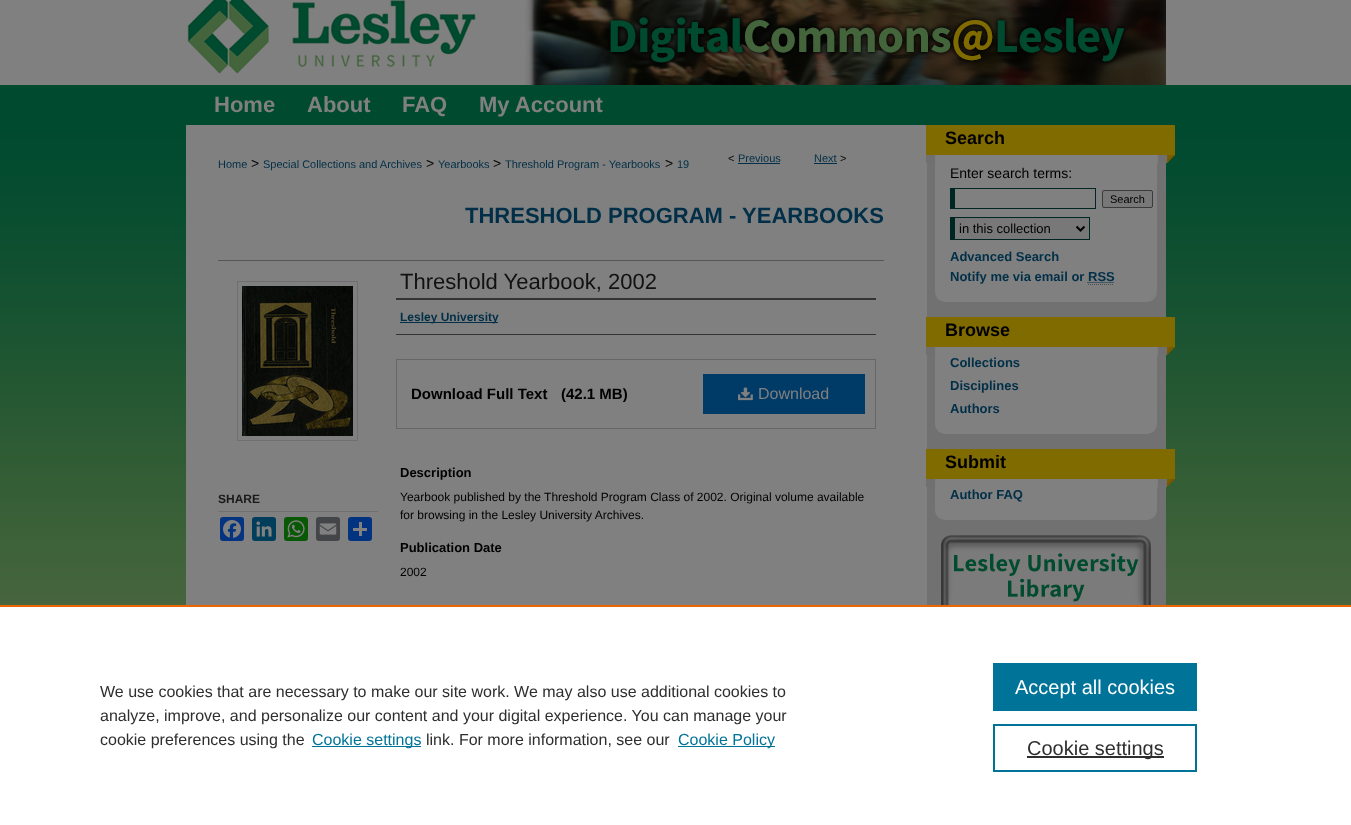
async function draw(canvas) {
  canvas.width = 1351
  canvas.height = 825
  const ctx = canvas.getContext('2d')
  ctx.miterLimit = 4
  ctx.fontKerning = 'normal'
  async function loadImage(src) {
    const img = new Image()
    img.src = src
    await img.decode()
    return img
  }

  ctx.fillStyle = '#fff'
  ctx.fillRect(0, 0, 1351, 825)
  ctx.drawImage(await loadImage('image0.png'), 0, 0, 1351, 605)
  ctx.drawImage(await loadImage('image1.png'), 187, 0, 289, 74)
  ctx.drawImage(await loadImage('image2.png'), 525, 0, 641, 85)
  ctx.font = 'bold 22px Liberation Sans'
  ctx.fillStyle = '#808080'
  ctx.fillText('Home', 214, 112)
  ctx.fillText('About', 307, 112)
  ctx.fillText('FAQ', 402, 112)
  ctx.fillText('My Account', 479, 112)
  ctx.fillStyle = '#717171'
  ctx.fillRect(927, 163, 239, 442)
  ctx.fillStyle = '#808080'
  ctx.fillRect(186, 125, 741, 480)
  ctx.font = '11px Liberation Sans'
  ctx.fillStyle = '#002f47'
  ctx.fillText('Home', 218, 168)
  ctx.font = '14px Liberation Sans'
  ctx.fillStyle = '#000'
  ctx.fillText('>', 251, 168)
  ctx.font = '11px Liberation Sans'
  ctx.fillStyle = '#002f47'
  ctx.fillText('Special Collections and Archives', 263, 168)
  ctx.font = '14px Liberation Sans'
  ctx.fillStyle = '#000'
  ctx.fillText('>', 426, 168)
  ctx.font = '11px Liberation Sans'
  ctx.fillStyle = '#002f47'
  ctx.fillText('Yearbooks', 438, 168)
  ctx.font = '14px Liberation Sans'
  ctx.fillStyle = '#000'
  ctx.fillText('>', 493, 168)
  ctx.font = '11px Liberation Sans'
  ctx.fillStyle = '#002f47'
  ctx.fillText('Threshold Program - Yearbooks', 505, 168)
  ctx.font = '14px Liberation Sans'
  ctx.fillStyle = '#000'
  ctx.fillText('>', 665, 168)
  ctx.font = '11px Liberation Sans'
  ctx.fillStyle = '#002f47'
  ctx.fillText('19', 677, 168)
  ctx.fillStyle = '#111'
  ctx.fillText('<', 728, 162)
  ctx.fillStyle = '#002f47'
  ctx.fillText('Previous', 738, 162)
  ctx.fillRect(738, 163, 42, 1)
  ctx.fillText('Next', 814, 162)
  ctx.fillRect(814, 163, 23, 1)
  ctx.fillStyle = '#111'
  ctx.fillText('>', 840, 162)
  ctx.font = 'bold 22px Liberation Sans'
  ctx.fillStyle = '#002f47'
  ctx.fillText('THRESHOLD PROGRAM - YEARBOOKS', 465, 223)
  ctx.strokeStyle = '#6f6f6f'
  ctx.strokeRect(237.5, 281.5, 120, 159)
  ctx.drawImage(await loadImage('image3.png'), 242, 286, 111, 150)
  ctx.fillStyle = '#6f6f6f'
  ctx.fillRect(218, 511, 160, 1)
  ctx.font = 'bold 12px Liberation Sans'
  ctx.fillStyle = '#1a1a1a'
  ctx.fillText('SHARE', 218, 503)
  ctx.fillStyle = '#043380'
  ctx.beginPath()
  ctx.roundRect(220, 517, 24, 24, 3)
  ctx.fill()
  ctx.drawImage(await loadImage('image4.png'), 223, 520, 18, 18)
  ctx.fillStyle = '#003e5b'
  ctx.beginPath()
  ctx.roundRect(252, 517, 24, 24, 3)
  ctx.fill()
  ctx.drawImage(await loadImage('image5.png'), 256, 521, 16, 16)
  ctx.fillStyle = '#095805'
  ctx.beginPath()
  ctx.roundRect(284, 517, 24, 24, 3)
  ctx.fill()
  ctx.drawImage(await loadImage('image6.png'), 287, 520, 18, 18)
  ctx.fillStyle = '#444548'
  ctx.beginPath()
  ctx.roundRect(316, 517, 24, 24, 3)
  ctx.fill()
  ctx.drawImage(await loadImage('image7.png'), 319, 523, 18, 12)
  ctx.fillStyle = '#013380'
  ctx.beginPath()
  ctx.roundRect(348, 517, 24, 24, 3)
  ctx.fill()
  ctx.fillStyle = '#808080'
  ctx.fillRect(359, 522, 3, 14)
  ctx.fillRect(353, 528, 14, 3)
  ctx.fillStyle = '#555'
  ctx.fillRect(218, 260, 666, 1)
  ctx.font = '22px Liberation Sans'
  ctx.fillStyle = '#111'
  ctx.fillText('Threshold Yearbook, 2002', 400, 289)
  ctx.fillStyle = '#333'
  ctx.fillRect(396, 298, 480, 2)
  ctx.fillRect(396, 334, 480, 1)
  ctx.fillStyle = '#002f47'
  ctx.fillRect(400, 322, 98, 1)
  ctx.font = 'bold 12px Liberation Sans'
  ctx.fillText('Lesley University', 400, 321)
  ctx.strokeStyle = '#666'
  ctx.strokeRect(396.5, 359.5, 479, 69)
  ctx.font = 'bold 15px Liberation Sans'
  ctx.fillStyle = '#000'
  ctx.fillText('Download Full Text', 411, 399)
  ctx.fillText('(42.1 MB)', 561, 399)
  ctx.fillStyle = '#003a66'
  ctx.fillRect(703, 374, 162, 40)
  ctx.drawImage(await loadImage('image8.png'), 738, 387, 15, 14)
  ctx.font = '16px Liberation Sans'
  ctx.fillStyle = '#808080'
  ctx.fillText('Download', 758, 399)
  ctx.font = 'bold 13px Liberation Sans'
  ctx.fillStyle = '#000'
  ctx.fillText('Description', 400, 477)
  ctx.font = '12px Liberation Sans'
  ctx.fillText('Yearbook published by the Threshold Program Class of 2002. Original volume available', 400, 501)
  ctx.fillText('for browsing in the Lesley University Archives.', 400, 519)
  ctx.font = 'bold 13px Liberation Sans'
  ctx.fillText('Publication Date', 400, 552)
  ctx.font = '12px Liberation Sans'
  ctx.fillText('2002', 400, 576)
  ctx.drawImage(await loadImage('image9.png'), 926, 125, 249, 38)
  ctx.font = 'bold 18px Liberation Sans'
  ctx.fillText('Search', 945, 144)
  ctx.fillStyle = '#808080'
  ctx.fillRect(935, 163, 222, 106)
  ctx.font = '14px Liberation Sans'
  ctx.fillStyle = '#000'
  ctx.fillText('Enter search terms:', 950, 178)
  ctx.fillStyle = '#002623'
  ctx.fillRect(950, 188, 146, 1)
  ctx.fillRect(1095, 188, 1, 21)
  ctx.fillRect(950, 208, 146, 1)
  ctx.fillRect(950, 188, 5, 21)
  ctx.fillStyle = '#787878'
  ctx.beginPath()
  ctx.roundRect(1102.5, 190.5, 50, 17, 1.5)
  ctx.fill()
  ctx.strokeStyle = '#3b3b3b'
  ctx.stroke()
  ctx.font = '11px Liberation Sans'
  ctx.fillStyle = '#000'
  ctx.fillText('Search', 1110, 203)
  ctx.fillStyle = '#787878'
  ctx.fillRect(955, 218, 134, 21)
  ctx.fillStyle = '#002623'
  ctx.fillRect(950, 217, 140, 1)
  ctx.fillRect(1089, 217, 1, 23)
  ctx.fillRect(950, 239, 140, 1)
  ctx.fillRect(950, 217, 5, 23)
  ctx.beginPath()
  ctx.moveTo(1076.5, 226.5)
  ctx.lineTo(1080.5, 230.5)
  ctx.lineTo(1084.5, 226.5)
  ctx.strokeStyle = '#000'
  ctx.lineWidth = 2
  ctx.stroke()
  ctx.font = '13px Liberation Sans'
  ctx.fillStyle = '#000'
  ctx.fillText('in this collection', 959, 233)
  ctx.font = 'bold 13px Liberation Sans'
  ctx.fillStyle = '#002f47'
  ctx.fillText('Advanced Search', 950, 261)
  ctx.fillStyle = '#808080'
  ctx.beginPath()
  ctx.roundRect(935, 269, 222, 33, [0, 0, 10, 10])
  ctx.fill()
  ctx.fillStyle = '#002f47'
  ctx.fillText('Notify me via email or RSS', 950, 281)
  ctx.beginPath()
  ctx.moveTo(1087.5, 282.5)
  ctx.lineTo(1114, 282.5)
  ctx.strokeStyle = '#002f47'
  ctx.lineWidth = 1
  ctx.setLineDash([1, 1])
  ctx.stroke()
  ctx.beginPath()
  ctx.moveTo(1088, 284.5)
  ctx.lineTo(1114, 284.5)
  ctx.strokeStyle = '#4d4d4d'
  ctx.stroke()
  ctx.drawImage(await loadImage('image10.png'), 926, 317, 249, 38)
  ctx.font = 'bold 18px Liberation Sans'
  ctx.fillStyle = '#000'
  ctx.fillText('Browse', 945, 336)
  ctx.fillStyle = '#808080'
  ctx.beginPath()
  ctx.roundRect(935, 355, 222, 79, [0, 0, 10, 10])
  ctx.fill()
  ctx.font = 'bold 13px Liberation Sans'
  ctx.fillStyle = '#002f47'
  ctx.fillText('Collections', 950, 367)
  ctx.fillText('Disciplines', 950, 390)
  ctx.fillText('Authors', 950, 413)
  ctx.drawImage(await loadImage('image11.png'), 926, 449, 249, 38)
  ctx.font = 'bold 18px Liberation Sans'
  ctx.fillStyle = '#000'
  ctx.fillText('Submit', 945, 468)
  ctx.fillStyle = '#808080'
  ctx.beginPath()
  ctx.roundRect(935, 487, 222, 33, [0, 0, 10, 10])
  ctx.fill()
  ctx.font = 'bold 13px Liberation Sans'
  ctx.fillStyle = '#002f47'
  ctx.fillText('Author FAQ', 950, 499)
  ctx.drawImage(await loadImage('image12.png'), 941, 535, 210, 70)
  ctx.fillStyle = '#eb6500'
  ctx.fillRect(0, 605, 1351, 2)
  ctx.font = '16px Liberation Sans'
  ctx.fillStyle = '#2e2e2e'
  ctx.fillText('We use cookies that are necessary to make our site work. We may also use additional cookies to', 100, 697)
  ctx.fillText('analyze, improve, and personalize our content and your digital experience. You can manage your', 100, 721)
  ctx.fillText('cookie preferences using the', 100, 745)
  ctx.fillStyle = '#007398'
  ctx.fillRect(312, 746, 109, 1)
  ctx.fillText('Cookie settings', 312, 745)
  ctx.fillStyle = '#2e2e2e'
  ctx.fillText('link. For more information, see our', 426, 745)
  ctx.fillStyle = '#007398'
  ctx.fillRect(678, 746, 97, 1)
  ctx.fillText('Cookie Policy', 678, 745)
  ctx.fillRect(993, 663, 204, 48)
  ctx.font = '20px Liberation Sans'
  ctx.fillStyle = '#fff'
  ctx.fillText('Accept all cookies', 1015, 694)
  ctx.strokeStyle = '#007398'
  ctx.lineWidth = 2
  ctx.setLineDash([])
  ctx.strokeRect(994, 725, 202, 46)
  ctx.fillStyle = '#2e2e2e'
  ctx.fillRect(1027, 756, 137, 2)
  ctx.fillText('Cookie settings', 1027, 755)
}

draw(document.querySelector('canvas'))
